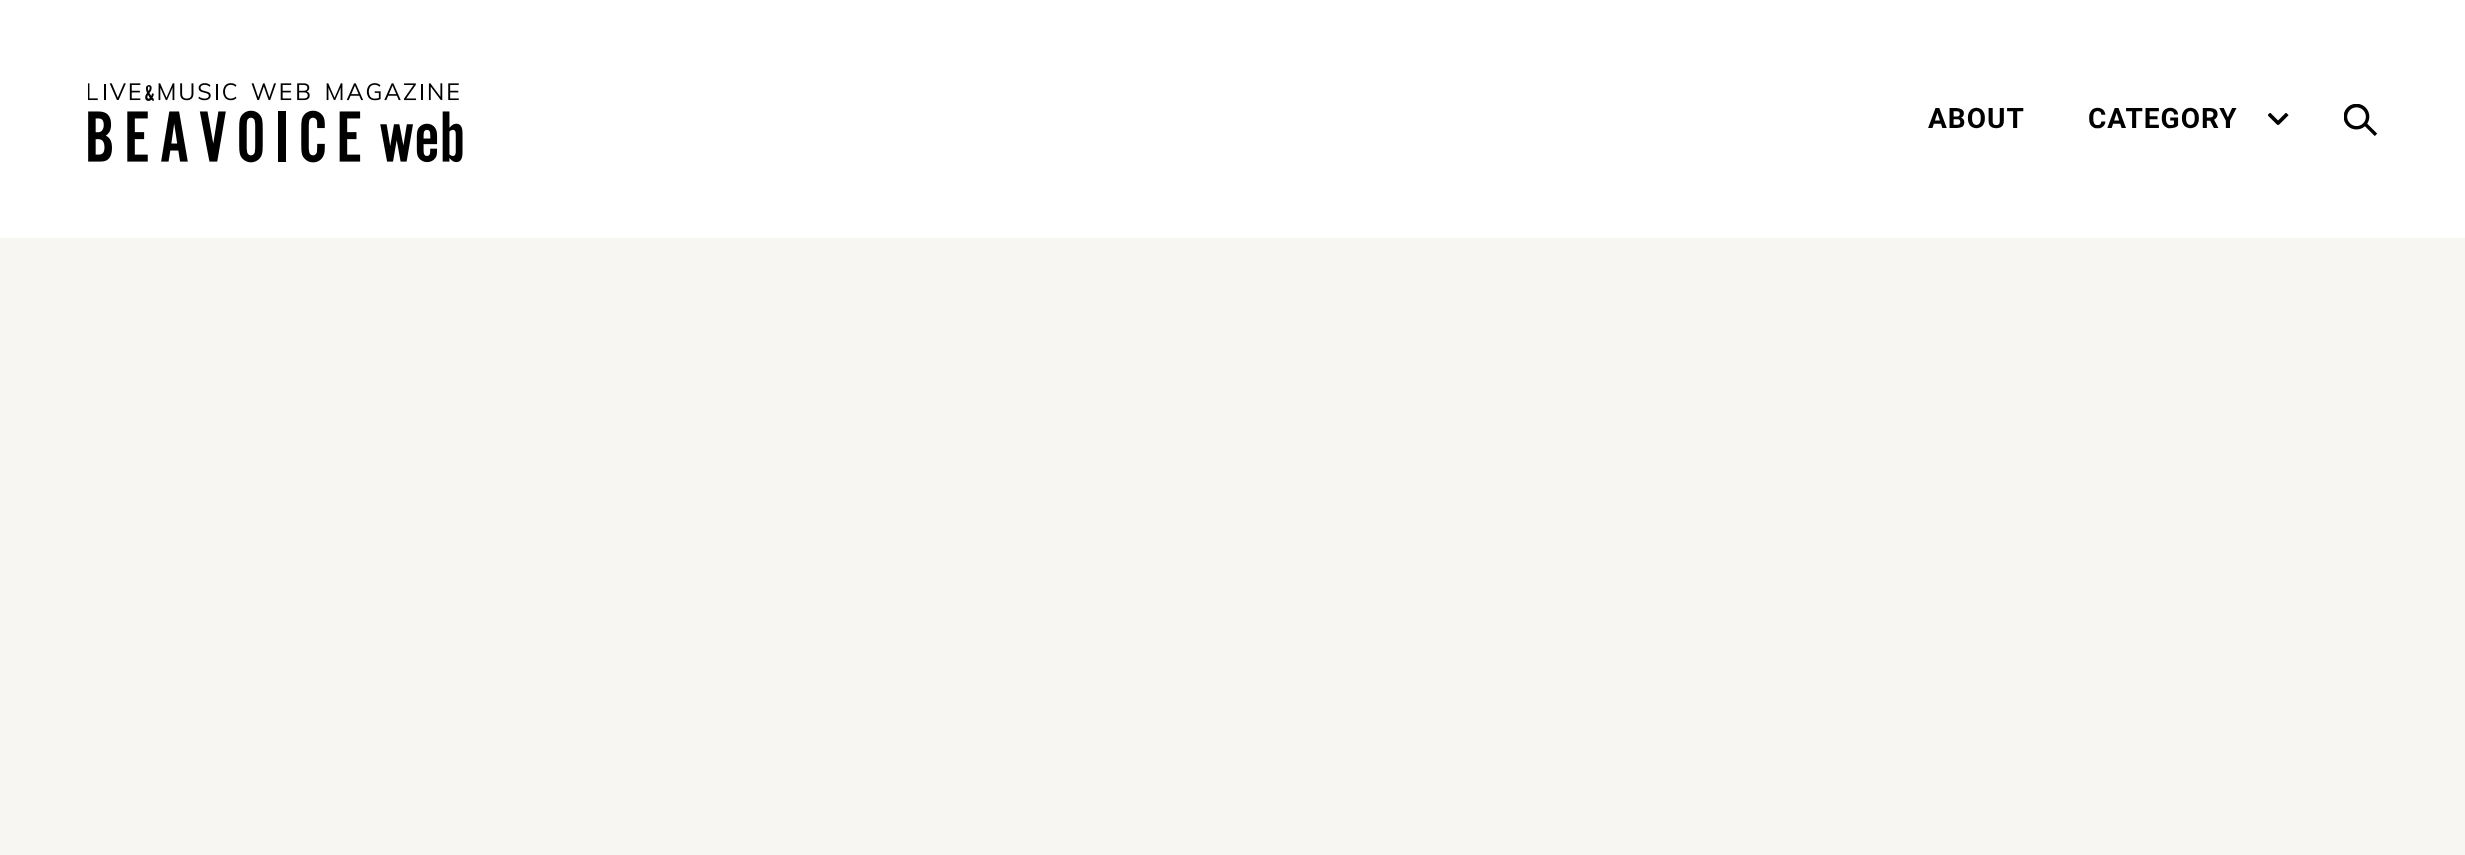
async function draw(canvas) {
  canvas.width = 2465
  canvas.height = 855
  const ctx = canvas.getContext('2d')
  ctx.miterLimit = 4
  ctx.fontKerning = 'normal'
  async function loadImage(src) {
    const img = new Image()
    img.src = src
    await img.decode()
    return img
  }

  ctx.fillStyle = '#fff'
  ctx.fillRect(0, 0, 2465, 855)
  ctx.drawImage(await loadImage('image0.png'), 88, 83, 375, 80)
  ctx.letterSpacing = '1px'
  ctx.font = 'bold 28px Roboto'
  ctx.fillStyle = '#000'
  ctx.fillText('ABOUT', 1928, 128)
  ctx.fillText('CATEGORY', 2088, 128)
  ctx.drawImage(await loadImage('image1.png'), 2268, 113, 21, 12)
  ctx.drawImage(await loadImage('image2.png'), 2344, 104, 34, 32)
  ctx.fillStyle = '#f8f6f2'
  ctx.fillRect(0, 238, 2465, 617)
}

draw(document.querySelector('canvas'))
